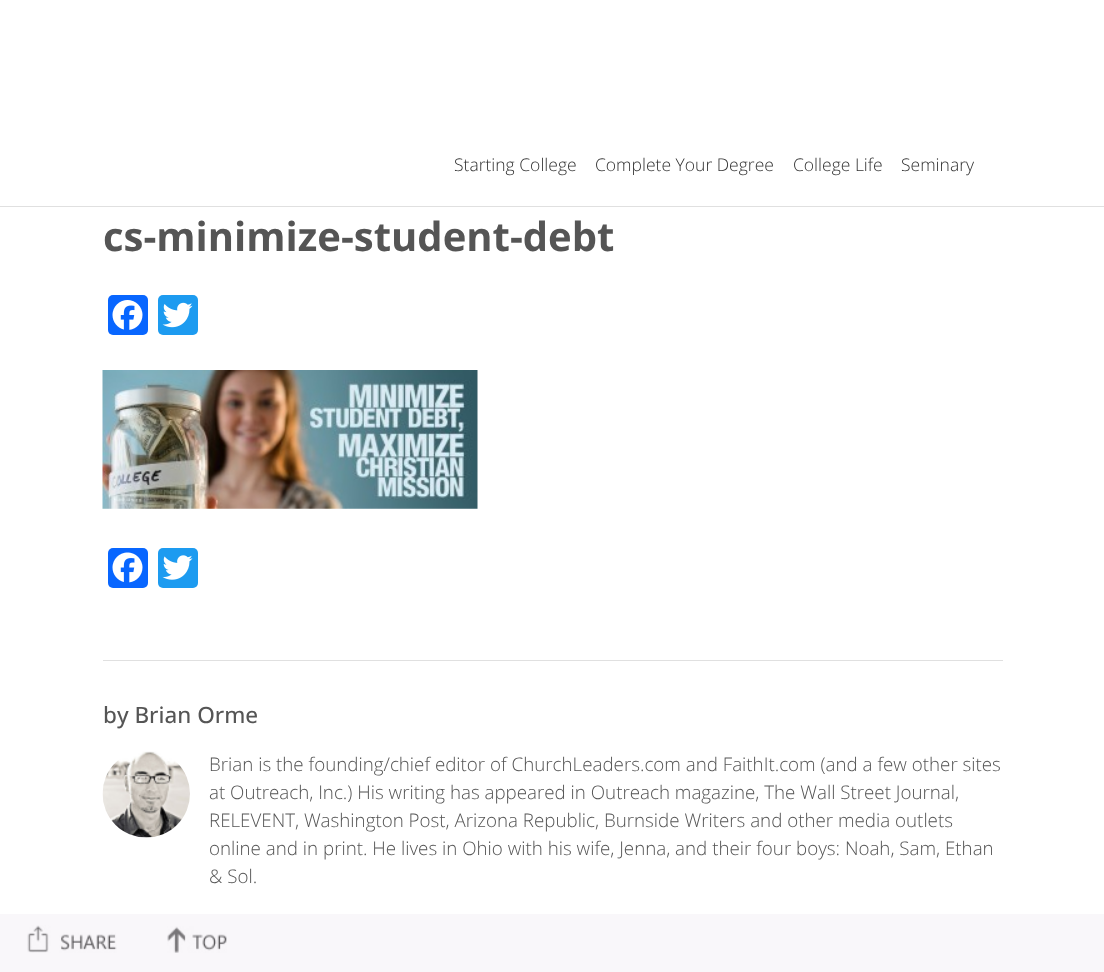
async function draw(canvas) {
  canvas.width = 1104
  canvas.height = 972
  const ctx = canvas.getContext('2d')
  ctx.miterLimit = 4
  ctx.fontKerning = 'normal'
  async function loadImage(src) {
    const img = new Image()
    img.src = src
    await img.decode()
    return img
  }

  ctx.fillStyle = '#fff'
  ctx.fillRect(0, 0, 1104, 972)
  ctx.fillStyle = '#e0e0e0'
  ctx.fillRect(0, 206, 1104, 1)
  ctx.font = '300 17.5px Open Sans'
  ctx.fillStyle = '#333'
  ctx.fillText('Starting College', 454, 171)
  ctx.fillText('Complete Your Degree', 595, 171)
  ctx.fillText('College Life', 793, 171)
  ctx.fillText('Seminary', 901, 171)
  ctx.font = 'bold 40px Open Sans'
  ctx.fillStyle = '#555'
  ctx.fillText('cs-minimize-student-debt', 103, 251)
  ctx.fillStyle = '#0866ff'
  ctx.beginPath()
  ctx.roundRect(108, 295, 40, 40, 5)
  ctx.fill()
  ctx.drawImage(await loadImage('image0.png'), 112, 300, 31, 30)
  ctx.fillStyle = '#1d9bf0'
  ctx.beginPath()
  ctx.roundRect(158, 295, 40, 40, 5)
  ctx.fill()
  ctx.drawImage(await loadImage('image1.png'), 162, 302, 31, 26)
  ctx.drawImage(await loadImage('image2.png'), 102, 370, 376, 139)
  ctx.fillStyle = '#0866ff'
  ctx.beginPath()
  ctx.roundRect(108, 548, 40, 40, 5)
  ctx.fill()
  ctx.drawImage(await loadImage('image3.png'), 112, 552, 31, 31)
  ctx.fillStyle = '#1d9bf0'
  ctx.beginPath()
  ctx.roundRect(158, 548, 40, 40, 5)
  ctx.fill()
  ctx.drawImage(await loadImage('image4.png'), 162, 555, 31, 25)
  ctx.fillStyle = '#e0e0e0'
  ctx.fillRect(103, 660, 900, 1)
  ctx.font = '500 22.5px Open Sans'
  ctx.fillStyle = '#555'
  ctx.fillText('by Brian Orme', 103, 723)
  ctx.drawImage(await loadImage('image5.png'), 102, 751, 88, 87)
  ctx.font = '300 18.75px Open Sans'
  ctx.fillText('Brian is the founding/chief editor of ChurchLeaders.com and FaithIt.com (and a few other sites', 209, 771)
  ctx.fillText('at Outreach, Inc.) His writing has appeared in Outreach magazine, The Wall Street Journal,', 209, 799)
  ctx.fillText('RELEVENT, Washington Post, Arizona Republic, Burnside Writers and other media outlets', 209, 827)
  ctx.fillText('online and in print. He lives in Ohio with his wife, Jenna, and their four boys: Noah, Sam, Ethan', 209, 855)
  ctx.fillText('& Sol.', 209, 883)
  ctx.fillStyle = '#f9f7fa'
  ctx.fillRect(0, 914, 1104, 58)
  ctx.drawImage(await loadImage('image6.png'), 27, 925, 90, 28)
  ctx.drawImage(await loadImage('image7.png'), 167, 926, 60, 27)
}

draw(document.querySelector('canvas'))
